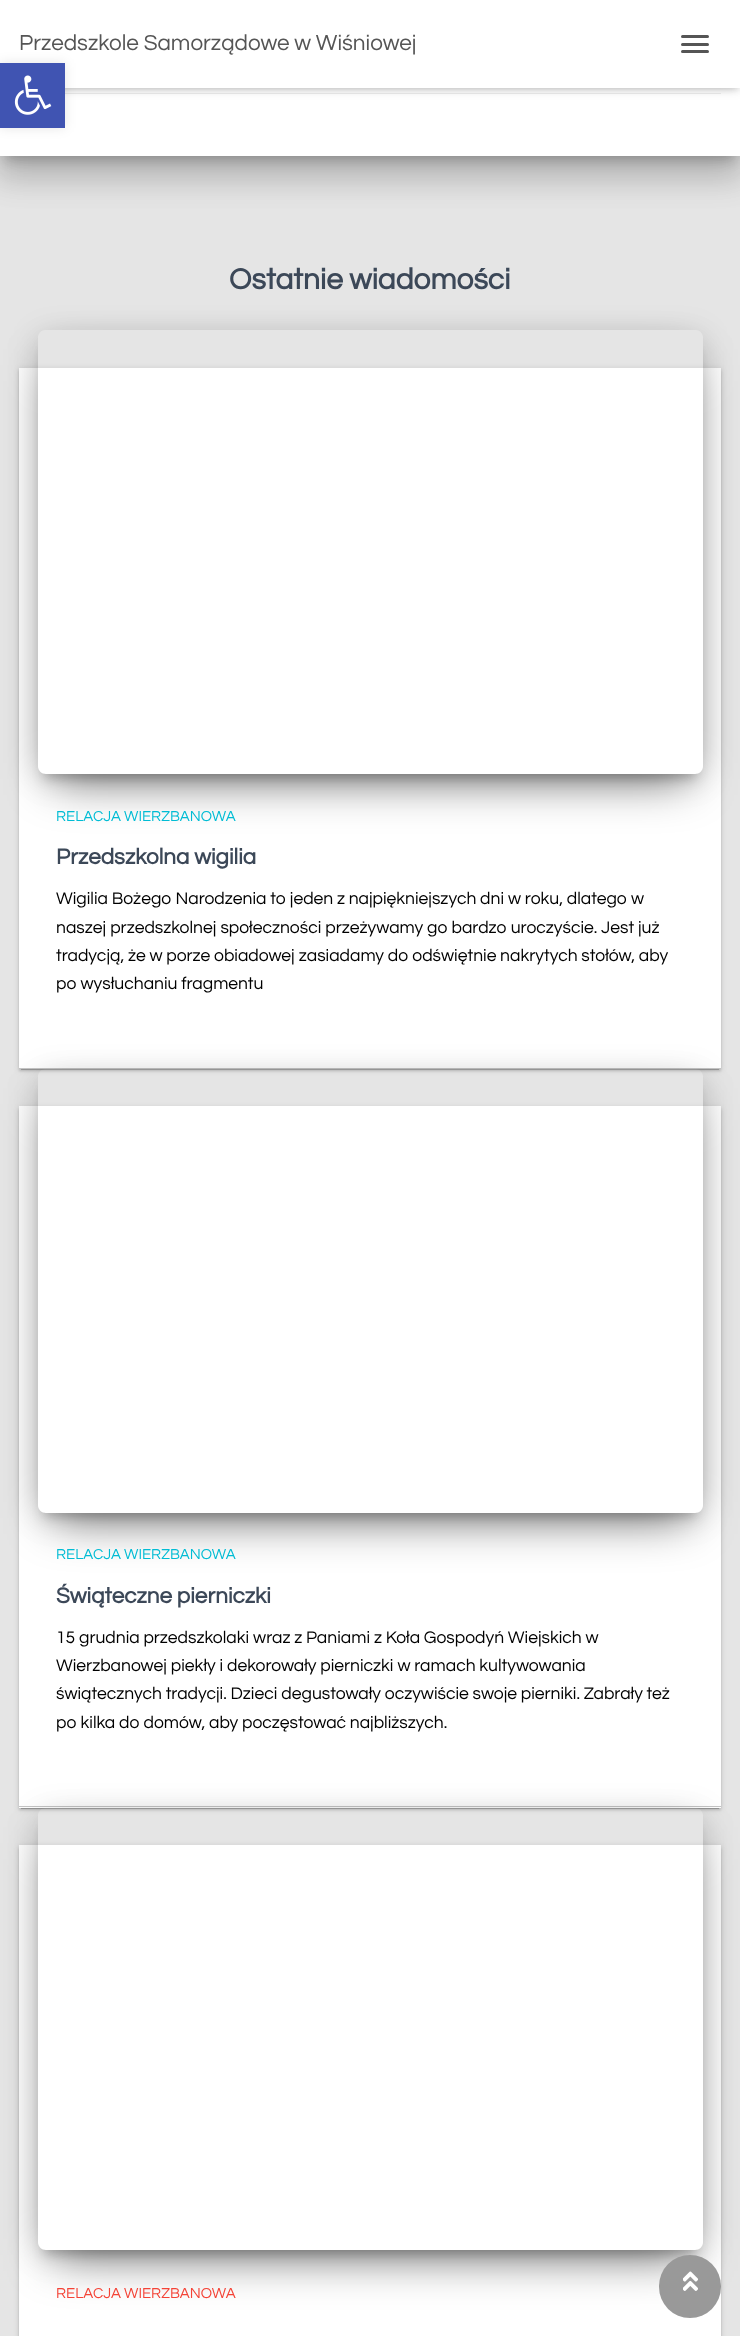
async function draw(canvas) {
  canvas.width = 740
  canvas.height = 2336
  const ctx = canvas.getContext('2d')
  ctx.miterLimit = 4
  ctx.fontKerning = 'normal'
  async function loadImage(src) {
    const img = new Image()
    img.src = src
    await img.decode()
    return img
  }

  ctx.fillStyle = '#e5e5e5'
  ctx.fillRect(0, 0, 740, 2336)
  ctx.fillStyle = '#00000033'
  ctx.filter = 'blur(6px)'
  ctx.beginPath()
  ctx.rect(6, -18, 728, 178)
  ctx.fill()
  ctx.filter = 'none'
  ctx.fillStyle = '#0000001f'
  ctx.filter = 'blur(19px)'
  ctx.beginPath()
  ctx.rect(-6, -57, 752, 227)
  ctx.fill()
  ctx.filter = 'none'
  ctx.fillStyle = '#00000024'
  ctx.filter = 'blur(15px)'
  ctx.beginPath()
  ctx.rect(-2, -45, 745, 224)
  ctx.fill()
  ctx.filter = 'none'
  ctx.fillStyle = '#fff'
  ctx.fillRect(0, 88, 740, 68)
  ctx.fillStyle = '#eee'
  ctx.fillRect(65, 93, 656, 1)
  ctx.fillStyle = '#0000001a'
  ctx.filter = 'blur(3px)'
  ctx.beginPath()
  ctx.rect(3, 8, 735, 82)
  ctx.fill()
  ctx.filter = 'none'
  ctx.fillStyle = '#0000001f'
  ctx.filter = 'blur(6px)'
  ctx.beginPath()
  ctx.rect(0, 1, 740, 88)
  ctx.fill()
  ctx.filter = 'none'
  ctx.fillStyle = '#0000006b'
  ctx.filter = 'blur(6px)'
  ctx.beginPath()
  ctx.rect(8, 9, 725, 72)
  ctx.fill()
  ctx.filter = 'none'
  ctx.fillStyle = '#fff'
  ctx.fillRect(0, 0, 740, 88)
  ctx.font = '22.5px Questrial'
  ctx.fillStyle = '#555'
  ctx.fillText('Przedszkole Samorządowe w Wiśniowej', 19, 50)
  ctx.beginPath()
  ctx.roundRect(681, 35, 28, 3, 1.5)
  ctx.fill()
  ctx.beginPath()
  ctx.roundRect(681, 43, 28, 3, 1.5)
  ctx.fill()
  ctx.beginPath()
  ctx.roundRect(681, 50, 28, 3, 1.5)
  ctx.fill()
  ctx.font = 'bold 30px Questrial'
  ctx.fillStyle = '#3c4858'
  ctx.fillText('Ostatnie wiadomości', 229, 289)
  ctx.fillStyle = '#0000001f'
  ctx.filter = 'blur(3px)'
  ctx.beginPath()
  ctx.rect(19, 369, 702, 701)
  ctx.fill()
  ctx.filter = 'none'
  ctx.fillStyle = '#00000033'
  ctx.filter = 'blur(0.5px)'
  ctx.beginPath()
  ctx.rect(21, 374, 698, 696)
  ctx.fill()
  ctx.filter = 'none'
  ctx.fillStyle = '#00000024'
  ctx.filter = 'blur(1px)'
  ctx.beginPath()
  ctx.rect(19, 370, 702, 701)
  ctx.fill()
  ctx.filter = 'none'
  ctx.fillStyle = '#fff'
  ctx.fillRect(19, 368, 702, 700)
  ctx.fillStyle = '#c5c5c5'
  ctx.fillRect(19, 1068, 702, 1)
  ctx.save()
  ctx.beginPath()
  ctx.moveTo(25, 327)
  ctx.lineTo(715, 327)
  ctx.lineTo(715, 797)
  ctx.lineTo(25, 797)
  ctx.closePath()
  ctx.moveTo(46, 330)
  ctx.lineTo(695, 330)
  ctx.bezierCurveTo(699.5, 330, 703, 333.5, 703, 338)
  ctx.lineTo(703, 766)
  ctx.bezierCurveTo(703, 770.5, 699.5, 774, 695, 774)
  ctx.lineTo(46, 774)
  ctx.bezierCurveTo(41.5, 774, 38, 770.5, 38, 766)
  ctx.lineTo(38, 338)
  ctx.bezierCurveTo(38, 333.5, 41.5, 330, 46, 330)
  ctx.closePath()
  ctx.clip('evenodd')
  ctx.fillStyle = '#00000033'
  ctx.filter = 'blur(6px)'
  ctx.beginPath()
  ctx.roundRect(44, 346, 652, 432, 1)
  ctx.fill()
  ctx.filter = 'none'
  ctx.restore()
  ctx.save()
  ctx.beginPath()
  ctx.moveTo(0, 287)
  ctx.lineTo(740, 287)
  ctx.lineTo(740, 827)
  ctx.lineTo(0, 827)
  ctx.closePath()
  ctx.moveTo(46, 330)
  ctx.lineTo(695, 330)
  ctx.bezierCurveTo(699.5, 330, 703, 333.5, 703, 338)
  ctx.lineTo(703, 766)
  ctx.bezierCurveTo(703, 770.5, 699.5, 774, 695, 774)
  ctx.lineTo(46, 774)
  ctx.bezierCurveTo(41.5, 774, 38, 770.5, 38, 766)
  ctx.lineTo(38, 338)
  ctx.bezierCurveTo(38, 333.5, 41.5, 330, 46, 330)
  ctx.closePath()
  ctx.clip('evenodd')
  ctx.fillStyle = '#0000001f'
  ctx.filter = 'blur(15.5px)'
  ctx.beginPath()
  ctx.roundRect(38, 335, 665, 444, 8)
  ctx.fill()
  ctx.filter = 'none'
  ctx.restore()
  ctx.save()
  ctx.beginPath()
  ctx.moveTo(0, 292)
  ctx.lineTo(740, 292)
  ctx.lineTo(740, 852)
  ctx.lineTo(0, 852)
  ctx.closePath()
  ctx.moveTo(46, 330)
  ctx.lineTo(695, 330)
  ctx.bezierCurveTo(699.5, 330, 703, 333.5, 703, 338)
  ctx.lineTo(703, 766)
  ctx.bezierCurveTo(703, 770.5, 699.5, 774, 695, 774)
  ctx.lineTo(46, 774)
  ctx.bezierCurveTo(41.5, 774, 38, 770.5, 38, 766)
  ctx.lineTo(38, 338)
  ctx.bezierCurveTo(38, 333.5, 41.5, 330, 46, 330)
  ctx.closePath()
  ctx.clip('evenodd')
  ctx.fillStyle = '#0000008f'
  ctx.filter = 'blur(24px)'
  ctx.beginPath()
  ctx.rect(53, 365, 635, 414)
  ctx.fill()
  ctx.filter = 'none'
  ctx.restore()
  ctx.font = '15px Questrial'
  ctx.fillStyle = '#00bcd4'
  ctx.fillText('RELACJA WIERZBANOWA', 56, 821)
  ctx.font = 'bold 22.5px Questrial'
  ctx.fillStyle = '#3c4858'
  ctx.fillText('Przedszkolna wigilia', 56, 864)
  ctx.font = '17.5px Questrial'
  ctx.fillStyle = '#000'
  ctx.fillText('Wigilia Bożego Narodzenia to jeden z najpiękniejszych dni w roku, dlatego w', 56, 904)
  ctx.fillText('naszej przedszkolnej społeczności przeżywamy go bardzo uroczyście. Jest już', 56, 933)
  ctx.fillText('tradycją, że w porze obiadowej zasiadamy do odświętnie nakrytych stołów, aby', 56, 961)
  ctx.fillText('po wysłuchaniu fragmentu', 56, 989)
  ctx.fillStyle = '#0000001f'
  ctx.filter = 'blur(3px)'
  ctx.beginPath()
  ctx.rect(19, 1108, 702, 701)
  ctx.fill()
  ctx.filter = 'none'
  ctx.fillStyle = '#00000033'
  ctx.filter = 'blur(0.5px)'
  ctx.beginPath()
  ctx.rect(21, 1113, 698, 696)
  ctx.fill()
  ctx.filter = 'none'
  ctx.fillStyle = '#00000024'
  ctx.filter = 'blur(1px)'
  ctx.beginPath()
  ctx.rect(19, 1109, 702, 701)
  ctx.fill()
  ctx.filter = 'none'
  ctx.fillStyle = '#fff'
  ctx.fillRect(19, 1106, 702, 702)
  ctx.fillStyle = '#c5c5c5'
  ctx.fillRect(19, 1806, 702, 1)
  ctx.save()
  ctx.beginPath()
  ctx.moveTo(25, 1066)
  ctx.lineTo(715, 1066)
  ctx.lineTo(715, 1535)
  ctx.lineTo(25, 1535)
  ctx.closePath()
  ctx.moveTo(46, 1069)
  ctx.lineTo(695, 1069)
  ctx.bezierCurveTo(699.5, 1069, 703, 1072.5, 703, 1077)
  ctx.lineTo(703, 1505)
  ctx.bezierCurveTo(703, 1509.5, 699.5, 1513, 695, 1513)
  ctx.lineTo(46, 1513)
  ctx.bezierCurveTo(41.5, 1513, 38, 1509.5, 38, 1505)
  ctx.lineTo(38, 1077)
  ctx.bezierCurveTo(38, 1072.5, 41.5, 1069, 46, 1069)
  ctx.closePath()
  ctx.clip('evenodd')
  ctx.fillStyle = '#00000033'
  ctx.filter = 'blur(6px)'
  ctx.beginPath()
  ctx.roundRect(44, 1085, 652, 431, 1)
  ctx.fill()
  ctx.filter = 'none'
  ctx.restore()
  ctx.save()
  ctx.beginPath()
  ctx.moveTo(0, 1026)
  ctx.lineTo(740, 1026)
  ctx.lineTo(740, 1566)
  ctx.lineTo(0, 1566)
  ctx.closePath()
  ctx.moveTo(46, 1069)
  ctx.lineTo(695, 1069)
  ctx.bezierCurveTo(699.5, 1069, 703, 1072.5, 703, 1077)
  ctx.lineTo(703, 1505)
  ctx.bezierCurveTo(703, 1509.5, 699.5, 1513, 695, 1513)
  ctx.lineTo(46, 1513)
  ctx.bezierCurveTo(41.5, 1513, 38, 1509.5, 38, 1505)
  ctx.lineTo(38, 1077)
  ctx.bezierCurveTo(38, 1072.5, 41.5, 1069, 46, 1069)
  ctx.closePath()
  ctx.clip('evenodd')
  ctx.fillStyle = '#0000001f'
  ctx.filter = 'blur(15.5px)'
  ctx.beginPath()
  ctx.roundRect(38, 1074, 665, 444, 8)
  ctx.fill()
  ctx.filter = 'none'
  ctx.restore()
  ctx.save()
  ctx.beginPath()
  ctx.moveTo(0, 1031)
  ctx.lineTo(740, 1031)
  ctx.lineTo(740, 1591)
  ctx.lineTo(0, 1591)
  ctx.closePath()
  ctx.moveTo(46, 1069)
  ctx.lineTo(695, 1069)
  ctx.bezierCurveTo(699.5, 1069, 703, 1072.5, 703, 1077)
  ctx.lineTo(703, 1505)
  ctx.bezierCurveTo(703, 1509.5, 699.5, 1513, 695, 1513)
  ctx.lineTo(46, 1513)
  ctx.bezierCurveTo(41.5, 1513, 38, 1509.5, 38, 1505)
  ctx.lineTo(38, 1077)
  ctx.bezierCurveTo(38, 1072.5, 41.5, 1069, 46, 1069)
  ctx.closePath()
  ctx.clip('evenodd')
  ctx.fillStyle = '#0000008f'
  ctx.filter = 'blur(24px)'
  ctx.beginPath()
  ctx.rect(53, 1104, 635, 414)
  ctx.fill()
  ctx.filter = 'none'
  ctx.restore()
  ctx.font = '15px Questrial'
  ctx.fillStyle = '#00bcd4'
  ctx.fillText('RELACJA WIERZBANOWA', 56, 1559)
  ctx.font = 'bold 22.5px Questrial'
  ctx.fillStyle = '#3c4858'
  ctx.fillText('Świąteczne pierniczki', 56, 1603)
  ctx.font = '17.5px Questrial'
  ctx.fillStyle = '#000'
  ctx.fillText('15 grudnia przedszkolaki wraz z Paniami z Koła Gospodyń Wiejskich w', 56, 1643)
  ctx.fillText('Wierzbanowej piekły i dekorowały pierniczki w ramach kultywowania', 56, 1671)
  ctx.fillText('świątecznych tradycji. Dzieci degustowały oczywiście swoje pierniki. Zabrały też', 56, 1699)
  ctx.fillText('po kilka do domów, aby poczęstować najbliższych.', 56, 1728)
  ctx.fillStyle = '#0000001f'
  ctx.filter = 'blur(3px)'
  ctx.beginPath()
  ctx.rect(19, 1846, 702, 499)
  ctx.fill()
  ctx.filter = 'none'
  ctx.fillStyle = '#00000024'
  ctx.filter = 'blur(1px)'
  ctx.beginPath()
  ctx.rect(19, 1848, 702, 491)
  ctx.fill()
  ctx.filter = 'none'
  ctx.fillStyle = '#fff'
  ctx.fillRect(19, 1845, 702, 491)
  ctx.save()
  ctx.beginPath()
  ctx.moveTo(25, 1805)
  ctx.lineTo(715, 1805)
  ctx.lineTo(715, 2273)
  ctx.lineTo(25, 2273)
  ctx.closePath()
  ctx.moveTo(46, 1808)
  ctx.lineTo(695, 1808)
  ctx.bezierCurveTo(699.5, 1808, 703, 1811.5, 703, 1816)
  ctx.lineTo(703, 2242)
  ctx.bezierCurveTo(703, 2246.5, 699.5, 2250, 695, 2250)
  ctx.lineTo(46, 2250)
  ctx.bezierCurveTo(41.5, 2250, 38, 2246.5, 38, 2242)
  ctx.lineTo(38, 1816)
  ctx.bezierCurveTo(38, 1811.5, 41.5, 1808, 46, 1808)
  ctx.closePath()
  ctx.clip('evenodd')
  ctx.fillStyle = '#00000033'
  ctx.filter = 'blur(6px)'
  ctx.beginPath()
  ctx.roundRect(44, 1824, 652, 430, 1)
  ctx.fill()
  ctx.filter = 'none'
  ctx.restore()
  ctx.save()
  ctx.beginPath()
  ctx.moveTo(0, 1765)
  ctx.lineTo(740, 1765)
  ctx.lineTo(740, 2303)
  ctx.lineTo(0, 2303)
  ctx.closePath()
  ctx.moveTo(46, 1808)
  ctx.lineTo(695, 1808)
  ctx.bezierCurveTo(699.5, 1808, 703, 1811.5, 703, 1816)
  ctx.lineTo(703, 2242)
  ctx.bezierCurveTo(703, 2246.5, 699.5, 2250, 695, 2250)
  ctx.lineTo(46, 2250)
  ctx.bezierCurveTo(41.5, 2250, 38, 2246.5, 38, 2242)
  ctx.lineTo(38, 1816)
  ctx.bezierCurveTo(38, 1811.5, 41.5, 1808, 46, 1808)
  ctx.closePath()
  ctx.clip('evenodd')
  ctx.fillStyle = '#0000001f'
  ctx.filter = 'blur(15.5px)'
  ctx.beginPath()
  ctx.roundRect(38, 1813, 665, 442, 8)
  ctx.fill()
  ctx.filter = 'none'
  ctx.restore()
  ctx.save()
  ctx.beginPath()
  ctx.moveTo(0, 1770)
  ctx.lineTo(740, 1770)
  ctx.lineTo(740, 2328)
  ctx.lineTo(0, 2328)
  ctx.closePath()
  ctx.moveTo(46, 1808)
  ctx.lineTo(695, 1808)
  ctx.bezierCurveTo(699.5, 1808, 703, 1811.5, 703, 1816)
  ctx.lineTo(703, 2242)
  ctx.bezierCurveTo(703, 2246.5, 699.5, 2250, 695, 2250)
  ctx.lineTo(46, 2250)
  ctx.bezierCurveTo(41.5, 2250, 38, 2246.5, 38, 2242)
  ctx.lineTo(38, 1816)
  ctx.bezierCurveTo(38, 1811.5, 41.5, 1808, 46, 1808)
  ctx.closePath()
  ctx.clip('evenodd')
  ctx.fillStyle = '#0000008f'
  ctx.filter = 'blur(24px)'
  ctx.beginPath()
  ctx.rect(53, 1843, 635, 412)
  ctx.fill()
  ctx.filter = 'none'
  ctx.restore()
  ctx.font = '15px Questrial'
  ctx.fillStyle = '#f44336'
  ctx.fillText('RELACJA WIERZBANOWA', 56, 2298)
  ctx.fillStyle = '#0000001a'
  ctx.filter = 'blur(6px)'
  ctx.beginPath()
  ctx.rect(0, 63, 65, 65)
  ctx.fill()
  ctx.filter = 'none'
  ctx.fillStyle = '#4054b2'
  ctx.fillRect(0, 63, 65, 65)
  ctx.drawImage(await loadImage('image0.png'), 14, 75, 38, 40)
  ctx.fillStyle = '#999'
  ctx.beginPath()
  ctx.roundRect(659, 2255, 62, 63, 31)
  ctx.fill()
  ctx.drawImage(await loadImage('image1.png'), 683, 2271, 15, 20)
}

draw(document.querySelector('canvas'))
